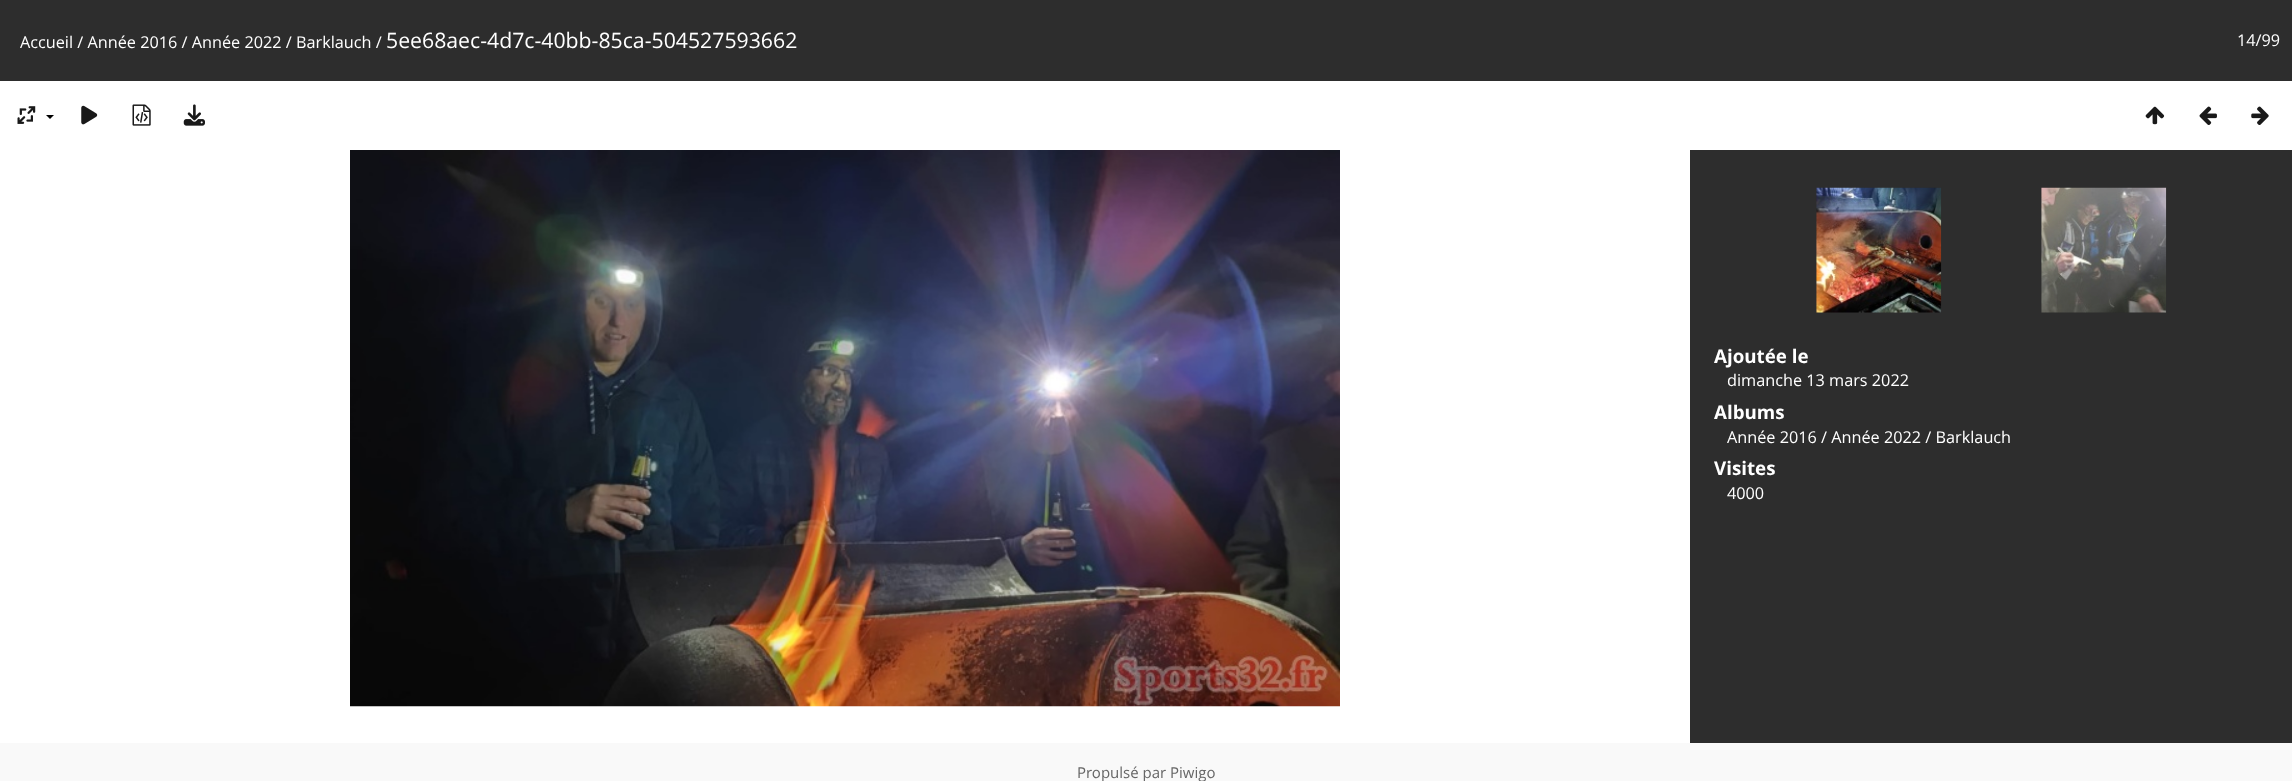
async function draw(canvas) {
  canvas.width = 2292
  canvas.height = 781
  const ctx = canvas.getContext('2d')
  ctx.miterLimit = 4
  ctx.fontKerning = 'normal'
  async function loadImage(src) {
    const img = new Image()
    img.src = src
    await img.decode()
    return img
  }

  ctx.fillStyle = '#fff'
  ctx.fillRect(0, 0, 2292, 781)
  ctx.fillStyle = '#2d2d2d'
  ctx.fillRect(0, 0, 2292, 81)
  ctx.font = '16.25px Open Sans'
  ctx.fillStyle = '#fff'
  ctx.fillText('Accueil / Année 2016 / Année 2022 / Barklauch /', 20, 48)
  ctx.font = '21.25px Open Sans'
  ctx.fillText('5ee68aec-4d7c-40bb-85ca-504527593662', 386, 48)
  ctx.font = '16.25px Open Sans'
  ctx.fillText('14/99', 2237, 46)
  ctx.drawImage(await loadImage('image0.png'), 17, 106, 19, 18)
  ctx.fillStyle = '#000'
  ctx.beginPath()
  ctx.moveTo(46, 115)
  ctx.lineTo(54, 115)
  ctx.lineTo(50, 119)
  ctx.closePath()
  ctx.fill()
  ctx.drawImage(await loadImage('image1.png'), 81, 105, 17, 20)
  ctx.drawImage(await loadImage('image2.png'), 132, 104, 19, 22)
  ctx.drawImage(await loadImage('image3.png'), 183, 104, 22, 22)
  ctx.drawImage(await loadImage('image4.png'), 2145, 106, 20, 19)
  ctx.drawImage(await loadImage('image5.png'), 2199, 106, 18, 19)
  ctx.drawImage(await loadImage('image6.png'), 2251, 106, 18, 19)
  ctx.drawImage(await loadImage('image7.png'), 350, 150, 990, 557)
  ctx.fillStyle = '#2d2d2d'
  ctx.fillRect(1690, 150, 602, 593)
  ctx.drawImage(await loadImage('image8.png'), 1816, 187, 126, 126)
  ctx.drawImage(await loadImage('image9.png'), 2041, 187, 126, 126)
  ctx.font = 'bold 18.75px Open Sans'
  ctx.fillStyle = '#fff'
  ctx.fillText('Ajoutée le', 1714, 363)
  ctx.font = '16.25px Open Sans'
  ctx.fillText('dimanche 13 mars 2022', 1727, 386)
  ctx.font = 'bold 18.75px Open Sans'
  ctx.fillText('Albums', 1714, 419)
  ctx.font = '16.25px Open Sans'
  ctx.fillText('Année 2016 / Année 2022 / Barklauch', 1727, 443)
  ctx.font = 'bold 18.75px Open Sans'
  ctx.fillText('Visites', 1714, 475)
  ctx.font = '16.25px Open Sans'
  ctx.fillText('4000', 1727, 499)
  ctx.fillStyle = '#f9f9f9'
  ctx.fillRect(0, 743, 2292, 38)
  ctx.font = '15px Open Sans'
  ctx.fillStyle = '#666'
  ctx.fillText('Propulsé par', 1077, 778)
  ctx.fillText('Piwigo', 1170, 778)
}

draw(document.querySelector('canvas'))
